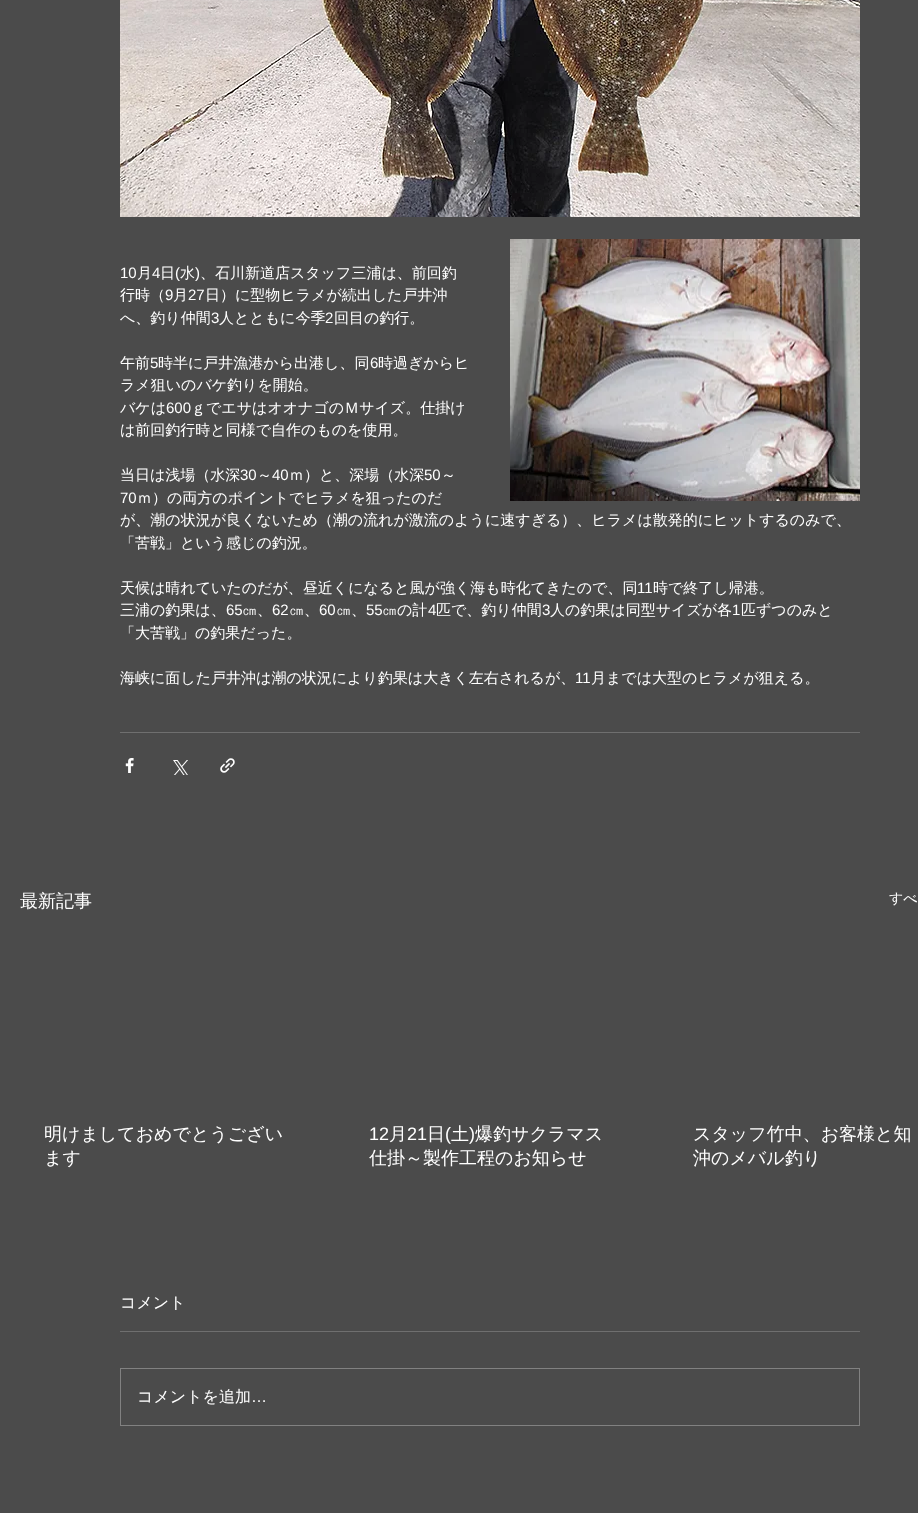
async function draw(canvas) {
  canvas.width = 918
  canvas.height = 1513
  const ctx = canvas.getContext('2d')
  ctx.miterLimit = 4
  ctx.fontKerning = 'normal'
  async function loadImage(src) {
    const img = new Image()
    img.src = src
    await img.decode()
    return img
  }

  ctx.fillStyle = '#4b4b4b'
  ctx.fillRect(0, 0, 918, 1513)
  ctx.drawImage(await loadImage('image0.png'), 120, 0, 740, 217)
  ctx.font = '15px Liberation Sans'
  ctx.fillStyle = '#fff'
  ctx.fillText('10', 120, 278)
  ctx.font = '500 15px WenQuanYi Zen Hei'
  ctx.fillText('月', 137, 278)
  ctx.font = '15px Liberation Sans'
  ctx.fillText('4', 152, 278)
  ctx.font = '500 15px WenQuanYi Zen Hei'
  ctx.fillText('日', 160, 278)
  ctx.font = '15px Liberation Sans'
  ctx.fillText('(', 175, 278)
  ctx.font = '500 15px WenQuanYi Zen Hei'
  ctx.fillText('水', 180, 278)
  ctx.font = '15px Liberation Sans'
  ctx.fillText(')', 195, 278)
  ctx.font = '500 15px WenQuanYi Zen Hei'
  ctx.fillText('、石川新道店スタッフ三浦は、前回釣', 200, 278)
  ctx.fillText('行時（', 120, 300)
  ctx.font = '15px Liberation Sans'
  ctx.fillText('9', 165, 300)
  ctx.font = '500 15px WenQuanYi Zen Hei'
  ctx.fillText('月', 173, 300)
  ctx.font = '15px Liberation Sans'
  ctx.fillText('27', 188, 300)
  ctx.font = '500 15px WenQuanYi Zen Hei'
  ctx.fillText('日）に型物ヒラメが続出した戸井沖', 205, 300)
  ctx.fillText('へ、釣り仲間', 120, 323)
  ctx.font = '15px Liberation Sans'
  ctx.fillText('3', 211, 323)
  ctx.font = '500 15px WenQuanYi Zen Hei'
  ctx.fillText('人とともに今季', 219, 323)
  ctx.font = '15px Liberation Sans'
  ctx.fillText('2', 325, 323)
  ctx.font = '500 15px WenQuanYi Zen Hei'
  ctx.fillText('回目の釣行。', 334, 323)
  ctx.drawImage(await loadImage('image1.png'), 510, 239, 350, 262)
  ctx.fillText('午前', 120, 368)
  ctx.font = '15px Liberation Sans'
  ctx.fillText('5', 150, 368)
  ctx.font = '500 15px WenQuanYi Zen Hei'
  ctx.fillText('時半に戸井漁港から出港し、同', 158, 368)
  ctx.font = '15px Liberation Sans'
  ctx.fillText('6', 370, 368)
  ctx.font = '500 15px WenQuanYi Zen Hei'
  ctx.fillText('時過ぎからヒ', 378, 368)
  ctx.fillText('ラメ狙いのバケ釣りを開始。', 120, 390)
  ctx.fillText('バケは', 120, 413)
  ctx.font = '15px Liberation Sans'
  ctx.fillText('600', 166, 413)
  ctx.font = '500 15px WenQuanYi Zen Hei'
  ctx.fillText('ｇでエサはオオナゴのＭサイズ。仕掛け', 191, 413)
  ctx.fillText('は前回釣行時と同様で自作のものを使用。', 120, 435)
  ctx.fillText('当日は浅場（水深', 120, 480)
  ctx.font = '15px Liberation Sans'
  ctx.fillText('30', 240, 480)
  ctx.font = '500 15px WenQuanYi Zen Hei'
  ctx.fillText('～', 257, 480)
  ctx.font = '15px Liberation Sans'
  ctx.fillText('40', 272, 480)
  ctx.font = '500 15px WenQuanYi Zen Hei'
  ctx.fillText('ｍ）と、深場（水深', 289, 480)
  ctx.font = '15px Liberation Sans'
  ctx.fillText('50', 424, 480)
  ctx.font = '500 15px WenQuanYi Zen Hei'
  ctx.fillText('～', 441, 480)
  ctx.font = '15px Liberation Sans'
  ctx.fillText('70', 120, 503)
  ctx.font = '500 15px WenQuanYi Zen Hei'
  ctx.fillText('ｍ）の両方のポイントでヒラメを狙ったのだ', 137, 503)
  ctx.fillText('が、潮の状況が良くないため（潮の流れが激流のように速すぎる）、ヒラメは散発的にヒットするのみで、', 120, 525)
  ctx.fillText('「苦戦」という感じの釣況。', 120, 548)
  ctx.fillText('天候は晴れていたのだが、昼近くになると風が強く海も時化てきたので、同', 120, 593)
  ctx.font = '15px Liberation Sans'
  ctx.fillText('11', 637, 593)
  ctx.font = '500 15px WenQuanYi Zen Hei'
  ctx.fillText('時で終了し帰港。', 653, 593)
  ctx.fillText('三浦の釣果は、', 120, 615)
  ctx.font = '15px Liberation Sans'
  ctx.fillText('65', 226, 615)
  ctx.font = '500 15px WenQuanYi Zen Hei'
  ctx.fillText('㎝、', 242, 615)
  ctx.font = '15px Liberation Sans'
  ctx.fillText('62', 272, 615)
  ctx.font = '500 15px WenQuanYi Zen Hei'
  ctx.fillText('㎝、', 289, 615)
  ctx.font = '15px Liberation Sans'
  ctx.fillText('60', 319, 615)
  ctx.font = '500 15px WenQuanYi Zen Hei'
  ctx.fillText('㎝、', 336, 615)
  ctx.font = '15px Liberation Sans'
  ctx.fillText('55', 366, 615)
  ctx.font = '500 15px WenQuanYi Zen Hei'
  ctx.fillText('㎝の計', 382, 615)
  ctx.font = '15px Liberation Sans'
  ctx.fillText('4', 428, 615)
  ctx.font = '500 15px WenQuanYi Zen Hei'
  ctx.fillText('匹で、釣り仲間', 436, 615)
  ctx.font = '15px Liberation Sans'
  ctx.fillText('3', 542, 615)
  ctx.font = '500 15px WenQuanYi Zen Hei'
  ctx.fillText('人の釣果は同型サイズが各', 550, 615)
  ctx.font = '15px Liberation Sans'
  ctx.fillText('1', 732, 615)
  ctx.font = '500 15px WenQuanYi Zen Hei'
  ctx.fillText('匹ずつのみと', 741, 615)
  ctx.fillText('「大苦戦」の釣果だった。', 120, 638)
  ctx.fillText('海峡に面した戸井沖は潮の状況により釣果は大きく左右されるが、', 120, 683)
  ctx.font = '15px Liberation Sans'
  ctx.fillText('11', 575, 683)
  ctx.font = '500 15px WenQuanYi Zen Hei'
  ctx.fillText('月までは大型のヒラメが狙える。', 591, 683)
  ctx.fillStyle = '#6f6f6f'
  ctx.fillRect(120, 732, 740, 1)
  ctx.drawImage(await loadImage('image2.png'), 125, 758, 9, 15)
  ctx.drawImage(await loadImage('image3.png'), 173, 760, 15, 15)
  ctx.drawImage(await loadImage('image4.png'), 220, 758, 15, 15)
  ctx.font = '500 18px WenQuanYi Zen Hei'
  ctx.fillStyle = '#fff'
  ctx.fillText('最新記事', 20, 907)
  ctx.font = '500 14px WenQuanYi Zen Hei'
  ctx.fillText('すべ', 889, 903)
  ctx.font = '500 18px WenQuanYi Zen Hei'
  ctx.fillText('明けましておめでとうござい', 44, 1140)
  ctx.fillText('ます', 44, 1164)
  ctx.font = '18px Liberation Sans'
  ctx.fillText('12', 369, 1140)
  ctx.font = '500 18px WenQuanYi Zen Hei'
  ctx.fillText('月', 389, 1140)
  ctx.font = '18px Liberation Sans'
  ctx.fillText('21', 407, 1140)
  ctx.font = '500 18px WenQuanYi Zen Hei'
  ctx.fillText('日', 427, 1140)
  ctx.font = '18px Liberation Sans'
  ctx.fillText('(', 445, 1140)
  ctx.font = '500 18px WenQuanYi Zen Hei'
  ctx.fillText('土', 451, 1140)
  ctx.font = '18px Liberation Sans'
  ctx.fillText(')', 469, 1140)
  ctx.font = '500 18px WenQuanYi Zen Hei'
  ctx.fillText('爆釣サクラマス', 475, 1140)
  ctx.fillText('仕掛～製作工程のお知らせ', 369, 1164)
  ctx.fillText('スタッフ竹中、お客様と知', 693, 1140)
  ctx.fillText('沖のメバル釣り', 693, 1164)
  ctx.font = '500 16px WenQuanYi Zen Hei'
  ctx.fillText('コメント', 120, 1308)
  ctx.fillStyle = '#6f6f6f'
  ctx.fillRect(120, 1331, 740, 1)
  ctx.strokeStyle = '#818181'
  ctx.strokeRect(120.5, 1368.5, 739, 57)
  ctx.fillStyle = '#fff'
  ctx.fillText('コメントを追加', 137, 1402)
  ctx.font = '16px Liberation Sans'
  ctx.fillText('…', 251, 1402)
}

draw(document.querySelector('canvas'))
